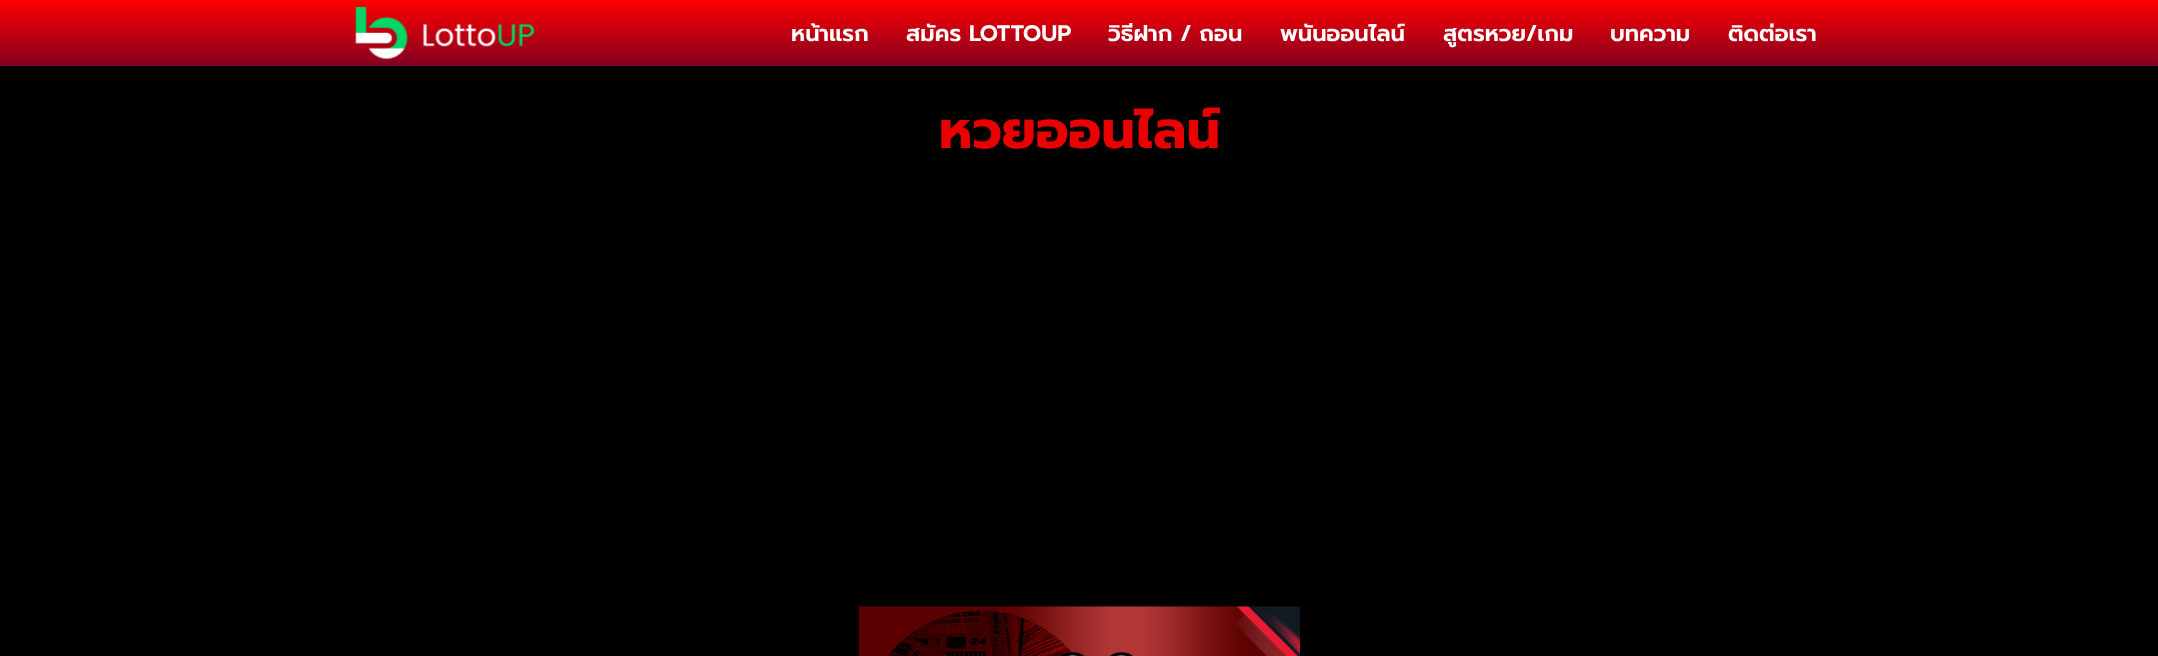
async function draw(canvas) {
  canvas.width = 2158
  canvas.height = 656
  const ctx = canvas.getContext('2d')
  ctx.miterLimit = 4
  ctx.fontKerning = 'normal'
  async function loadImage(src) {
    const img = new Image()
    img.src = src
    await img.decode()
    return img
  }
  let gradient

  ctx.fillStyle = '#000'
  ctx.fillRect(0, 0, 2158, 656)
  gradient = ctx.createLinearGradient(1079, 0, 1079, 66)
  gradient.addColorStop(0, '#f00')
  gradient.addColorStop(1, '#830021')
  ctx.fillStyle = gradient
  ctx.fillRect(0, 0, 2158, 66)
  ctx.drawImage(await loadImage('image0.png'), 355, 7, 180, 53)
  ctx.font = '600 22.5px Prompt'
  ctx.fillStyle = '#fff'
  ctx.fillText('หน้าแรก', 791, 41)
  ctx.fillText('สมัคร LOTTOUP', 906, 41)
  ctx.fillText('วิธีฝาก / ถอน', 1108, 41)
  ctx.fillText('พนันออนไลน์', 1280, 41)
  ctx.fillText('สูตรหวย/เกม', 1443, 41)
  ctx.fillText('บทความ', 1610, 41)
  ctx.fillText('ติดต่อเรา', 1728, 41)
  ctx.font = 'bold 52.5px Prompt'
  ctx.fillStyle = '#eb0000'
  ctx.fillText('หวยออนไลน์', 939, 148)
  ctx.drawImage(await loadImage('image1.png'), 858, 606, 442, 50)
}

draw(document.querySelector('canvas'))
